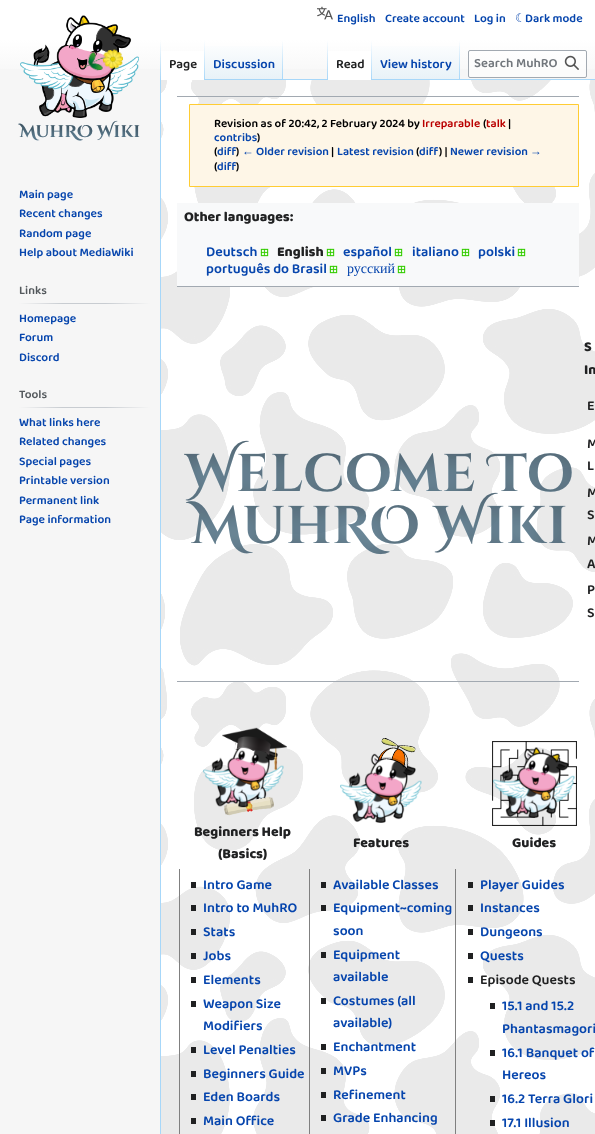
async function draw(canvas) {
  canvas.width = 595
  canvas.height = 1134
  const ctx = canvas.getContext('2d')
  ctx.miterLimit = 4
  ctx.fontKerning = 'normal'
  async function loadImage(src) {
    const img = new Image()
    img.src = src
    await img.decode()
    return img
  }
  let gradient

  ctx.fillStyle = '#f6f6f6'
  ctx.fillRect(0, 0, 595, 1134)
  gradient = ctx.createLinearGradient(298, 0, 298, 80)
  gradient.addColorStop(0.5, '#fff')
  gradient.addColorStop(1, '#f6f6f6')
  ctx.fillStyle = gradient
  ctx.fillRect(0, 0, 595, 69)
  ctx.drawImage(await loadImage('image0.png'), 317, 6, 16, 14)
  ctx.font = '600 12px "Baloo Paaji 2"'
  ctx.fillStyle = '#0645ad'
  ctx.fillText('English', 337, 22)
  ctx.fillText('Create account', 385, 22)
  ctx.fillText('Log in', 474, 22)
  ctx.font = '12px DejaVu Sans'
  ctx.fillText('☾', 515, 22)
  ctx.font = '600 12px "Baloo Paaji 2"'
  ctx.fillText('Dark mode', 525, 22)
  ctx.fillStyle = '#a7d7f9'
  ctx.fillRect(160, 79, 1, 1055)
  gradient = ctx.createLinearGradient(161, 40, 161, 80)
  gradient.addColorStop(0, '#a7d7f900')
  gradient.addColorStop(1, '#a7d7f9')
  ctx.fillStyle = gradient
  ctx.fillRect(160, 40, 1, 40)
  ctx.fillStyle = '#fff'
  ctx.fillRect(161, 51, 43, 29)
  gradient = ctx.createLinearGradient(205, 40, 205, 80)
  gradient.addColorStop(0, '#fff')
  gradient.addColorStop(1, '#a7d7f9')
  ctx.fillStyle = gradient
  ctx.fillRect(204, 40, 1, 40)
  ctx.font = '600 13px "Baloo Paaji 2"'
  ctx.fillStyle = '#202122'
  ctx.fillText('Page', 169, 68)
  gradient = ctx.createLinearGradient(244, 80, 244, 40)
  gradient.addColorStop(0, '#77c1f6')
  gradient.addColorStop(0.03, '#e8f2f8')
  gradient.addColorStop(1, '#fff')
  ctx.fillStyle = gradient
  ctx.fillRect(205, 46, 78, 34)
  gradient = ctx.createLinearGradient(283, 40, 283, 80)
  gradient.addColorStop(0, '#a7d7f900')
  gradient.addColorStop(1, '#a7d7f9')
  ctx.fillStyle = gradient
  ctx.fillRect(282, 40, 1, 40)
  ctx.fillStyle = '#0645ad'
  ctx.fillText('Discussion', 213, 68)
  ctx.fillStyle = '#a7d7f9'
  ctx.fillRect(283, 79, 312, 1)
  gradient = ctx.createLinearGradient(328, 40, 328, 80)
  gradient.addColorStop(0, '#a7d7f900')
  gradient.addColorStop(1, '#a7d7f9')
  ctx.fillStyle = gradient
  ctx.fillRect(327, 40, 1, 40)
  ctx.fillStyle = '#fff'
  ctx.fillRect(328, 51, 43, 29)
  gradient = ctx.createLinearGradient(372, 40, 372, 80)
  gradient.addColorStop(0, '#fff')
  gradient.addColorStop(1, '#a7d7f9')
  ctx.fillStyle = gradient
  ctx.fillRect(371, 40, 1, 40)
  ctx.fillStyle = '#202122'
  ctx.fillText('Read', 336, 68)
  gradient = ctx.createLinearGradient(416, 80, 416, 40)
  gradient.addColorStop(0, '#77c1f6')
  gradient.addColorStop(0.03, '#e8f2f8')
  gradient.addColorStop(1, '#fff')
  ctx.fillStyle = gradient
  ctx.fillRect(372, 46, 88, 33)
  gradient = ctx.createLinearGradient(460, 40, 460, 80)
  gradient.addColorStop(0, '#a7d7f900')
  gradient.addColorStop(1, '#a7d7f9')
  ctx.fillStyle = gradient
  ctx.fillRect(459, 40, 1, 40)
  ctx.fillStyle = '#0645ad'
  ctx.fillText('View history', 380, 68)
  ctx.fillStyle = '#ffffff80'
  ctx.beginPath()
  ctx.roundRect(468.5, 50.5, 118, 27, 1.5)
  ctx.fill()
  ctx.strokeStyle = '#a2a9b1'
  ctx.stroke()
  ctx.fillStyle = '#72777d'
  ctx.fillText('Search MuhRO', 474, 67)
  ctx.drawImage(await loadImage('image1.png'), 564, 55, 15, 15)
  ctx.drawImage(await loadImage('image2.png'), 18, 15, 122, 126)
  ctx.font = '600 12px "Baloo Paaji 2"'
  ctx.fillStyle = '#0645ad'
  ctx.fillText('Main page', 19, 198)
  ctx.fillText('Recent changes', 19, 217)
  ctx.fillText('Random page', 19, 237)
  ctx.fillText('Help about MediaWiki', 19, 256)
  gradient = ctx.createLinearGradient(19, 304, 150, 304)
  gradient.addColorStop(0, '#f6f6f6')
  gradient.addColorStop(0.33, '#c8ccd1')
  gradient.addColorStop(0.66, '#c8ccd1')
  gradient.addColorStop(1, '#f6f6f6')
  ctx.fillStyle = gradient
  ctx.fillRect(19, 303, 131, 1)
  ctx.fillStyle = '#54595d'
  ctx.fillText('Links', 19, 294)
  ctx.fillStyle = '#0645ad'
  ctx.fillText('Homepage', 19, 322)
  ctx.fillText('Forum', 19, 341)
  ctx.fillText('Discord', 19, 361)
  gradient = ctx.createLinearGradient(19, 408, 150, 408)
  gradient.addColorStop(0, '#f6f6f6')
  gradient.addColorStop(0.33, '#c8ccd1')
  gradient.addColorStop(0.66, '#c8ccd1')
  gradient.addColorStop(1, '#f6f6f6')
  ctx.fillStyle = gradient
  ctx.fillRect(19, 407, 131, 1)
  ctx.fillStyle = '#54595d'
  ctx.fillText('Tools', 19, 398)
  ctx.fillStyle = '#0645ad'
  ctx.fillText('What links here', 19, 426)
  ctx.fillText('Related changes', 19, 445)
  ctx.fillText('Special pages', 19, 465)
  ctx.fillText('Printable version', 19, 484)
  ctx.fillText('Permanent link', 19, 504)
  ctx.fillText('Page information', 19, 523)
  ctx.fillStyle = '#fff'
  ctx.fillRect(161, 80, 434, 1054)
  ctx.drawImage(await loadImage('image3.png'), 161, 80, 434, 1054)
  ctx.fillStyle = '#a2a9b1'
  ctx.fillRect(177, 96, 402, 1)
  ctx.fillStyle = '#fef6e7'
  ctx.beginPath()
  ctx.rect(189.5, 104.5, 389, 82)
  ctx.fill()
  ctx.strokeStyle = '#fc3'
  ctx.stroke()
  ctx.font = '600 11.75px "Baloo Paaji 2"'
  ctx.fillStyle = '#000'
  ctx.fillText('Revision as of 20:42, 2 February 2024 by', 214, 127)
  ctx.fillStyle = '#ba0000'
  ctx.fillText('Irreparable', 422, 127)
  ctx.fillStyle = '#000'
  ctx.fillText('(', 483, 127)
  ctx.fillStyle = '#ba0000'
  ctx.fillText('talk', 486, 127)
  ctx.fillStyle = '#000'
  ctx.fillText('|', 508, 127)
  ctx.fillStyle = '#0645ad'
  ctx.fillText('contribs', 214, 141)
  ctx.fillStyle = '#000'
  ctx.fillText(')', 257, 141)
  ctx.fillText('(', 214, 155)
  ctx.fillStyle = '#0645ad'
  ctx.fillText('diff', 217, 155)
  ctx.fillStyle = '#000'
  ctx.fillText(')', 236, 155)
  ctx.font = '11.75px Liberation Serif'
  ctx.fillStyle = '#0645ad'
  ctx.fillText('←', 242, 155)
  ctx.font = '600 11.75px "Baloo Paaji 2"'
  ctx.fillText('Older revision', 256, 155)
  ctx.fillStyle = '#000'
  ctx.fillText('|', 331, 155)
  ctx.fillStyle = '#0645ad'
  ctx.fillText('Latest revision', 337, 155)
  ctx.fillStyle = '#000'
  ctx.fillText('(', 416, 155)
  ctx.fillStyle = '#0645ad'
  ctx.fillText('diff', 419, 155)
  ctx.fillStyle = '#000'
  ctx.fillText(') |', 439, 155)
  ctx.fillStyle = '#0645ad'
  ctx.fillText('Newer revision', 450, 155)
  ctx.font = '11.75px Liberation Serif'
  ctx.fillText('→', 530, 155)
  ctx.font = '600 11.75px "Baloo Paaji 2"'
  ctx.fillStyle = '#000'
  ctx.fillText('(', 214, 170)
  ctx.fillStyle = '#0645ad'
  ctx.fillText('diff', 217, 170)
  ctx.fillStyle = '#000'
  ctx.fillText(')', 236, 170)
  ctx.fillStyle = '#f8f9fa'
  ctx.fillRect(177, 203, 402, 83)
  ctx.fillStyle = '#a2a9b1'
  ctx.fillRect(177, 286, 402, 1)
  ctx.font = '800 14px "Baloo Paaji 2"'
  ctx.fillStyle = '#202122'
  ctx.fillText('Other languages:', 184, 221)
  ctx.font = '600 14px "Baloo Paaji 2"'
  ctx.fillStyle = '#0645ad'
  ctx.fillText('Deutsch', 206, 256)
  ctx.drawImage(await loadImage('image4.png'), 260, 248, 9, 9)
  ctx.font = '800 14px "Baloo Paaji 2"'
  ctx.fillStyle = '#202122'
  ctx.fillText('English', 277, 256)
  ctx.drawImage(await loadImage('image4.png'), 326, 248, 9, 9)
  ctx.font = '600 14px "Baloo Paaji 2"'
  ctx.fillStyle = '#0645ad'
  ctx.fillText('español', 343, 256)
  ctx.drawImage(await loadImage('image4.png'), 394, 248, 9, 9)
  ctx.fillText('italiano', 412, 256)
  ctx.drawImage(await loadImage('image4.png'), 461, 248, 9, 9)
  ctx.fillText('polski', 478, 256)
  ctx.drawImage(await loadImage('image4.png'), 517, 248, 9, 9)
  ctx.fillText('português do Brasil', 206, 273)
  ctx.drawImage(await loadImage('image4.png'), 329, 265, 9, 9)
  ctx.font = '14px Liberation Serif'
  ctx.fillText('русский', 347, 273)
  ctx.drawImage(await loadImage('image4.png'), 397, 265, 9, 9)
  ctx.drawImage(await loadImage('image5.png'), 184, 440, 388, 115)
  ctx.font = '800 14px "Baloo Paaji 2"'
  ctx.fillStyle = '#202122'
  ctx.fillText('S', 584, 351)
  ctx.fillText('In', 584, 374)
  ctx.font = '600 14px "Baloo Paaji 2"'
  ctx.fillText('E', 587, 410)
  ctx.fillText('M', 587, 448)
  ctx.fillText('L', 587, 470)
  ctx.fillText('M', 587, 497)
  ctx.fillText('S', 587, 519)
  ctx.fillText('M', 587, 545)
  ctx.fillText('A', 587, 568)
  ctx.fillText('P', 587, 594)
  ctx.fillText('S', 587, 617)
  ctx.fillStyle = '#a2a9b1'
  ctx.fillRect(177, 681, 402, 1)
  ctx.drawImage(await loadImage('image6.png'), 203, 727, 84, 89)
  ctx.font = '800 14px "Baloo Paaji 2"'
  ctx.fillStyle = '#202122'
  ctx.fillText('Beginners Help', 194, 836)
  ctx.fillText('(Basics)', 218, 858)
  ctx.drawImage(await loadImage('image7.png'), 340, 738, 82, 85)
  ctx.fillText('Features', 353, 847)
  ctx.drawImage(await loadImage('image8.png'), 492, 741, 85, 85)
  ctx.fillText('Guides', 512, 847)
  ctx.fillStyle = '#808080'
  ctx.fillRect(179, 869, 1, 265)
  ctx.fillStyle = '#202122'
  ctx.fillRect(191, 882, 5, 6)
  ctx.font = '600 14px "Baloo Paaji 2"'
  ctx.fillStyle = '#0645ad'
  ctx.fillText('Intro Game', 203, 889)
  ctx.fillStyle = '#202122'
  ctx.fillRect(191, 905, 5, 6)
  ctx.fillStyle = '#0645ad'
  ctx.fillText('Intro to MuhRO', 203, 912)
  ctx.fillStyle = '#202122'
  ctx.fillRect(191, 929, 5, 6)
  ctx.fillStyle = '#0645ad'
  ctx.fillText('Stats', 203, 936)
  ctx.fillStyle = '#202122'
  ctx.fillRect(191, 953, 5, 6)
  ctx.fillStyle = '#0645ad'
  ctx.fillText('Jobs', 203, 960)
  ctx.fillStyle = '#202122'
  ctx.fillRect(191, 977, 5, 6)
  ctx.fillStyle = '#0645ad'
  ctx.fillText('Elements', 203, 984)
  ctx.fillStyle = '#202122'
  ctx.fillRect(191, 1001, 5, 6)
  ctx.fillStyle = '#0645ad'
  ctx.fillText('Weapon Size', 203, 1008)
  ctx.fillText('Modifiers', 203, 1030)
  ctx.fillStyle = '#202122'
  ctx.fillRect(191, 1047, 5, 6)
  ctx.fillStyle = '#0645ad'
  ctx.fillText('Level Penalties', 203, 1054)
  ctx.fillStyle = '#202122'
  ctx.fillRect(191, 1071, 5, 6)
  ctx.fillStyle = '#0645ad'
  ctx.fillText('Beginners Guide', 203, 1078)
  ctx.fillStyle = '#202122'
  ctx.fillRect(191, 1094, 5, 6)
  ctx.fillStyle = '#0645ad'
  ctx.fillText('Eden Boards', 203, 1101)
  ctx.fillStyle = '#202122'
  ctx.fillRect(191, 1118, 5, 6)
  ctx.fillStyle = '#0645ad'
  ctx.fillText('Main Office', 203, 1125)
  ctx.fillStyle = '#808080'
  ctx.fillRect(309, 869, 1, 265)
  ctx.fillStyle = '#202122'
  ctx.fillRect(321, 882, 5, 6)
  ctx.fillStyle = '#0645ad'
  ctx.fillText('Available Classes', 333, 889)
  ctx.fillStyle = '#202122'
  ctx.fillRect(321, 905, 5, 6)
  ctx.fillStyle = '#0645ad'
  ctx.fillText('Equipment~coming', 333, 912)
  ctx.fillText('soon', 333, 935)
  ctx.fillStyle = '#202122'
  ctx.fillRect(321, 952, 5, 6)
  ctx.fillStyle = '#0645ad'
  ctx.fillText('Equipment', 333, 959)
  ctx.fillText('available', 333, 981)
  ctx.fillStyle = '#202122'
  ctx.fillRect(321, 998, 5, 6)
  ctx.fillStyle = '#0645ad'
  ctx.fillText('Costumes (all', 333, 1005)
  ctx.fillText('available)', 333, 1027)
  ctx.fillStyle = '#202122'
  ctx.fillRect(321, 1044, 5, 6)
  ctx.fillStyle = '#0645ad'
  ctx.fillText('Enchantment', 333, 1051)
  ctx.fillStyle = '#202122'
  ctx.fillRect(321, 1068, 5, 6)
  ctx.fillStyle = '#0645ad'
  ctx.fillText('MVPs', 333, 1075)
  ctx.fillStyle = '#202122'
  ctx.fillRect(321, 1092, 5, 6)
  ctx.fillStyle = '#0645ad'
  ctx.fillText('Refinement', 333, 1099)
  ctx.fillStyle = '#202122'
  ctx.fillRect(321, 1115, 5, 6)
  ctx.fillStyle = '#0645ad'
  ctx.fillText('Grade Enhancing', 333, 1122)
  ctx.fillStyle = '#808080'
  ctx.fillRect(455, 869, 1, 265)
  ctx.fillStyle = '#202122'
  ctx.fillRect(468, 882, 5, 6)
  ctx.fillStyle = '#0645ad'
  ctx.fillText('Player Guides', 480, 889)
  ctx.fillStyle = '#202122'
  ctx.fillRect(468, 905, 5, 6)
  ctx.fillStyle = '#0645ad'
  ctx.fillText('Instances', 480, 912)
  ctx.fillStyle = '#202122'
  ctx.fillRect(468, 929, 5, 6)
  ctx.fillStyle = '#0645ad'
  ctx.fillText('Dungeons', 480, 936)
  ctx.fillStyle = '#202122'
  ctx.fillRect(468, 953, 5, 6)
  ctx.fillStyle = '#0645ad'
  ctx.fillText('Quests', 480, 960)
  ctx.fillStyle = '#202122'
  ctx.fillRect(468, 977, 5, 6)
  ctx.fillText('Episode Quests', 480, 984)
  ctx.fillRect(490, 1003, 5, 6)
  ctx.fillStyle = '#0645ad'
  ctx.fillText('15.1 and 15.2', 502, 1010)
  ctx.fillText('Phantasmagori', 502, 1033)
  ctx.fillStyle = '#202122'
  ctx.fillRect(490, 1050, 5, 6)
  ctx.fillStyle = '#0645ad'
  ctx.fillText('16.1 Banquet of', 502, 1057)
  ctx.fillText('Hereos', 502, 1079)
  ctx.fillStyle = '#202122'
  ctx.fillRect(490, 1096, 5, 6)
  ctx.fillStyle = '#0645ad'
  ctx.fillText('16.2 Terra Glori', 502, 1103)
  ctx.fillStyle = '#202122'
  ctx.fillRect(490, 1120, 5, 6)
  ctx.fillStyle = '#0645ad'
  ctx.fillText('17.1 Illusion', 502, 1127)
}

draw(document.querySelector('canvas'))
